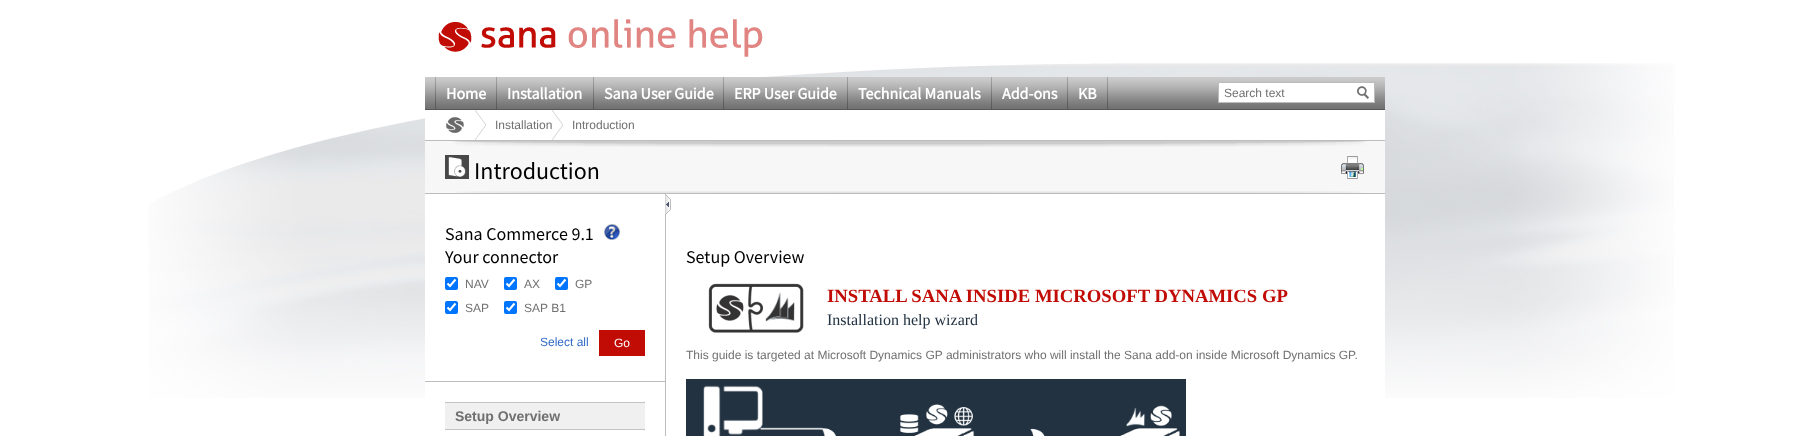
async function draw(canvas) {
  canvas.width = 1810
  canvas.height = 436
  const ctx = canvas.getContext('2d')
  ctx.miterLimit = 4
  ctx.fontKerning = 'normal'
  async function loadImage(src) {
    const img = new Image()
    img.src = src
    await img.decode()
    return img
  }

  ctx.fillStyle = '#fff'
  ctx.fillRect(0, 0, 1810, 436)
  ctx.drawImage(await loadImage('image0.png'), 149, 63, 1525, 335)
  ctx.drawImage(await loadImage('image1.png'), 438, 19, 325, 38)
  ctx.drawImage(await loadImage('image2.png'), 425, 77, 960, 32)
  ctx.fillStyle = '#565656'
  ctx.fillRect(425, 109, 960, 1)
  ctx.drawImage(await loadImage('image3.png'), 435, 77, 673, 32)
  ctx.drawImage(await loadImage('image4.png'), 436, 77, 60, 32)
  ctx.font = 'bold 16px Source Sans Pro'
  ctx.fillStyle = '#fff'
  ctx.fillText('Home', 446, 99)
  ctx.drawImage(await loadImage('image5.png'), 497, 77, 96, 32)
  ctx.fillText('Installation', 507, 99)
  ctx.drawImage(await loadImage('image6.png'), 594, 77, 129, 32)
  ctx.fillText('Sana User Guide', 604, 99)
  ctx.drawImage(await loadImage('image7.png'), 724, 77, 123, 32)
  ctx.fillText('ERP User Guide', 734, 99)
  ctx.drawImage(await loadImage('image8.png'), 848, 77, 143, 32)
  ctx.fillText('Technical Manuals', 858, 99)
  ctx.drawImage(await loadImage('image9.png'), 992, 77, 75, 32)
  ctx.fillText('Add-ons', 1002, 99)
  ctx.drawImage(await loadImage('image10.png'), 1068, 77, 39, 32)
  ctx.fillText('KB', 1078, 99)
  ctx.fillRect(1219, 83, 155, 19)
  ctx.fillStyle = '#bcbcbc'
  ctx.fillRect(1218, 82, 157, 1)
  ctx.fillRect(1218, 102, 137, 1)
  ctx.fillRect(1218, 82, 1, 21)
  ctx.font = '12px Liberation Sans'
  ctx.fillStyle = '#707070'
  ctx.fillText('Search text', 1224, 97)
  ctx.fillStyle = '#bcbcbc'
  ctx.fillRect(1374, 82, 1, 21)
  ctx.fillRect(1355, 102, 20, 1)
  ctx.drawImage(await loadImage('image11.png'), 1357, 86, 12, 13)
  ctx.fillStyle = '#fff'
  ctx.fillRect(425, 110, 960, 30)
  ctx.fillStyle = '#bcbcbc'
  ctx.fillRect(425, 140, 960, 1)
  ctx.drawImage(await loadImage('image12.png'), 446, 117, 18, 16)
  ctx.drawImage(await loadImage('image13.png'), 475, 110, 11, 30)
  ctx.fillStyle = '#707070'
  ctx.fillText('Installation', 495, 129)
  ctx.drawImage(await loadImage('image13.png'), 552, 110, 11, 30)
  ctx.fillText('Introduction', 572, 129)
  ctx.fillStyle = '#fff'
  ctx.fillRect(425, 194, 960, 204)
  ctx.fillStyle = '#f7f7f7'
  ctx.fillRect(425, 141, 960, 52)
  ctx.fillStyle = '#bcbcbc'
  ctx.fillRect(425, 193, 960, 1)
  ctx.drawImage(await loadImage('image14.png'), 452, 141, 915, 6)
  ctx.drawImage(await loadImage('image15.png'), 445, 155, 24, 24)
  ctx.font = '24px Source Sans Pro'
  ctx.fillStyle = '#000'
  ctx.fillText('Introduction', 474, 179)
  ctx.drawImage(await loadImage('image16.png'), 1341, 156, 23, 23)
  ctx.drawImage(await loadImage('image17.png'), 457, 191, 905, 2)
  ctx.fillStyle = '#bcbcbc'
  ctx.fillRect(425, 381, 241, 1)
  ctx.fillRect(665, 194, 1, 242)
  ctx.drawImage(await loadImage('image18.png'), 665, 195, 6, 19)
  ctx.font = '18px Source Sans Pro'
  ctx.fillStyle = '#000'
  ctx.fillText('Sana Commerce 9.1', 445, 240)
  ctx.fillText('Your connector', 445, 263)
  ctx.drawImage(await loadImage('image19.png'), 604, 224, 16, 16)
  ctx.fillStyle = '#0075ff'
  ctx.beginPath()
  ctx.roundRect(445, 277, 13, 13, 2)
  ctx.fill()
  ctx.beginPath()
  ctx.moveTo(447.5, 283.5)
  ctx.lineTo(450, 286)
  ctx.lineTo(455.5, 279.5)
  ctx.strokeStyle = '#fff'
  ctx.lineWidth = 2.1
  ctx.stroke()
  ctx.font = '12px Liberation Sans'
  ctx.fillStyle = '#707070'
  ctx.fillText('NAV', 465, 288)
  ctx.fillStyle = '#0075ff'
  ctx.beginPath()
  ctx.roundRect(504, 277, 13, 13, 2)
  ctx.fill()
  ctx.beginPath()
  ctx.moveTo(506.5, 283.5)
  ctx.lineTo(509, 286)
  ctx.lineTo(514.5, 279.5)
  ctx.stroke()
  ctx.fillStyle = '#707070'
  ctx.fillText('AX', 524, 288)
  ctx.fillStyle = '#0075ff'
  ctx.beginPath()
  ctx.roundRect(555, 277, 13, 13, 2)
  ctx.fill()
  ctx.beginPath()
  ctx.moveTo(557.5, 283.5)
  ctx.lineTo(560, 286)
  ctx.lineTo(565.5, 279.5)
  ctx.stroke()
  ctx.fillStyle = '#707070'
  ctx.fillText('GP', 575, 288)
  ctx.fillStyle = '#0075ff'
  ctx.beginPath()
  ctx.roundRect(445, 301, 13, 13, 2)
  ctx.fill()
  ctx.beginPath()
  ctx.moveTo(447.5, 307.5)
  ctx.lineTo(450, 310)
  ctx.lineTo(455.5, 303.5)
  ctx.stroke()
  ctx.fillStyle = '#707070'
  ctx.fillText('SAP', 465, 312)
  ctx.fillStyle = '#0075ff'
  ctx.beginPath()
  ctx.roundRect(504, 301, 13, 13, 2)
  ctx.fill()
  ctx.beginPath()
  ctx.moveTo(506.5, 307.5)
  ctx.lineTo(509, 310)
  ctx.lineTo(514.5, 303.5)
  ctx.stroke()
  ctx.fillStyle = '#707070'
  ctx.fillText('SAP B1', 524, 312)
  ctx.fillStyle = '#316ac5'
  ctx.fillText('Select all', 540, 346)
  ctx.fillStyle = '#c10c06'
  ctx.fillRect(599, 330, 46, 26)
  ctx.fillStyle = '#fff'
  ctx.fillText('Go', 614, 347)
  ctx.fillStyle = '#c3c3c3'
  ctx.fillRect(445, 429, 200, 1)
  ctx.fillStyle = '#f0f0f0'
  ctx.fillRect(445, 403, 200, 26)
  ctx.fillStyle = '#c3c3c3'
  ctx.fillRect(445, 402, 200, 1)
  ctx.font = 'bold 14px Liberation Sans'
  ctx.fillStyle = '#707070'
  ctx.fillText('Setup Overview', 455, 421)
  ctx.font = '18px Source Sans Pro'
  ctx.fillStyle = '#000'
  ctx.fillText('Setup Overview', 686, 263)
  ctx.drawImage(await loadImage('image20.png'), 708, 283, 96, 50)
  ctx.font = 'bold 18.7px Liberation Serif'
  ctx.fillStyle = '#c10c06'
  ctx.fillText('INSTALL SANA INSIDE MICROSOFT DYNAMICS GP', 827, 302)
  ctx.font = '16px Liberation Serif'
  ctx.fillStyle = '#223241'
  ctx.fillText('Installation help wizard', 827, 325)
  ctx.font = '12px Liberation Sans'
  ctx.fillStyle = '#707070'
  ctx.fillText('This guide is targeted at Microsoft Dynamics GP administrators who will install the Sana add-on inside Microsoft Dynamics GP.', 686, 359)
  ctx.drawImage(await loadImage('image21.png'), 686, 379, 500, 57)
}

draw(document.querySelector('canvas'))
